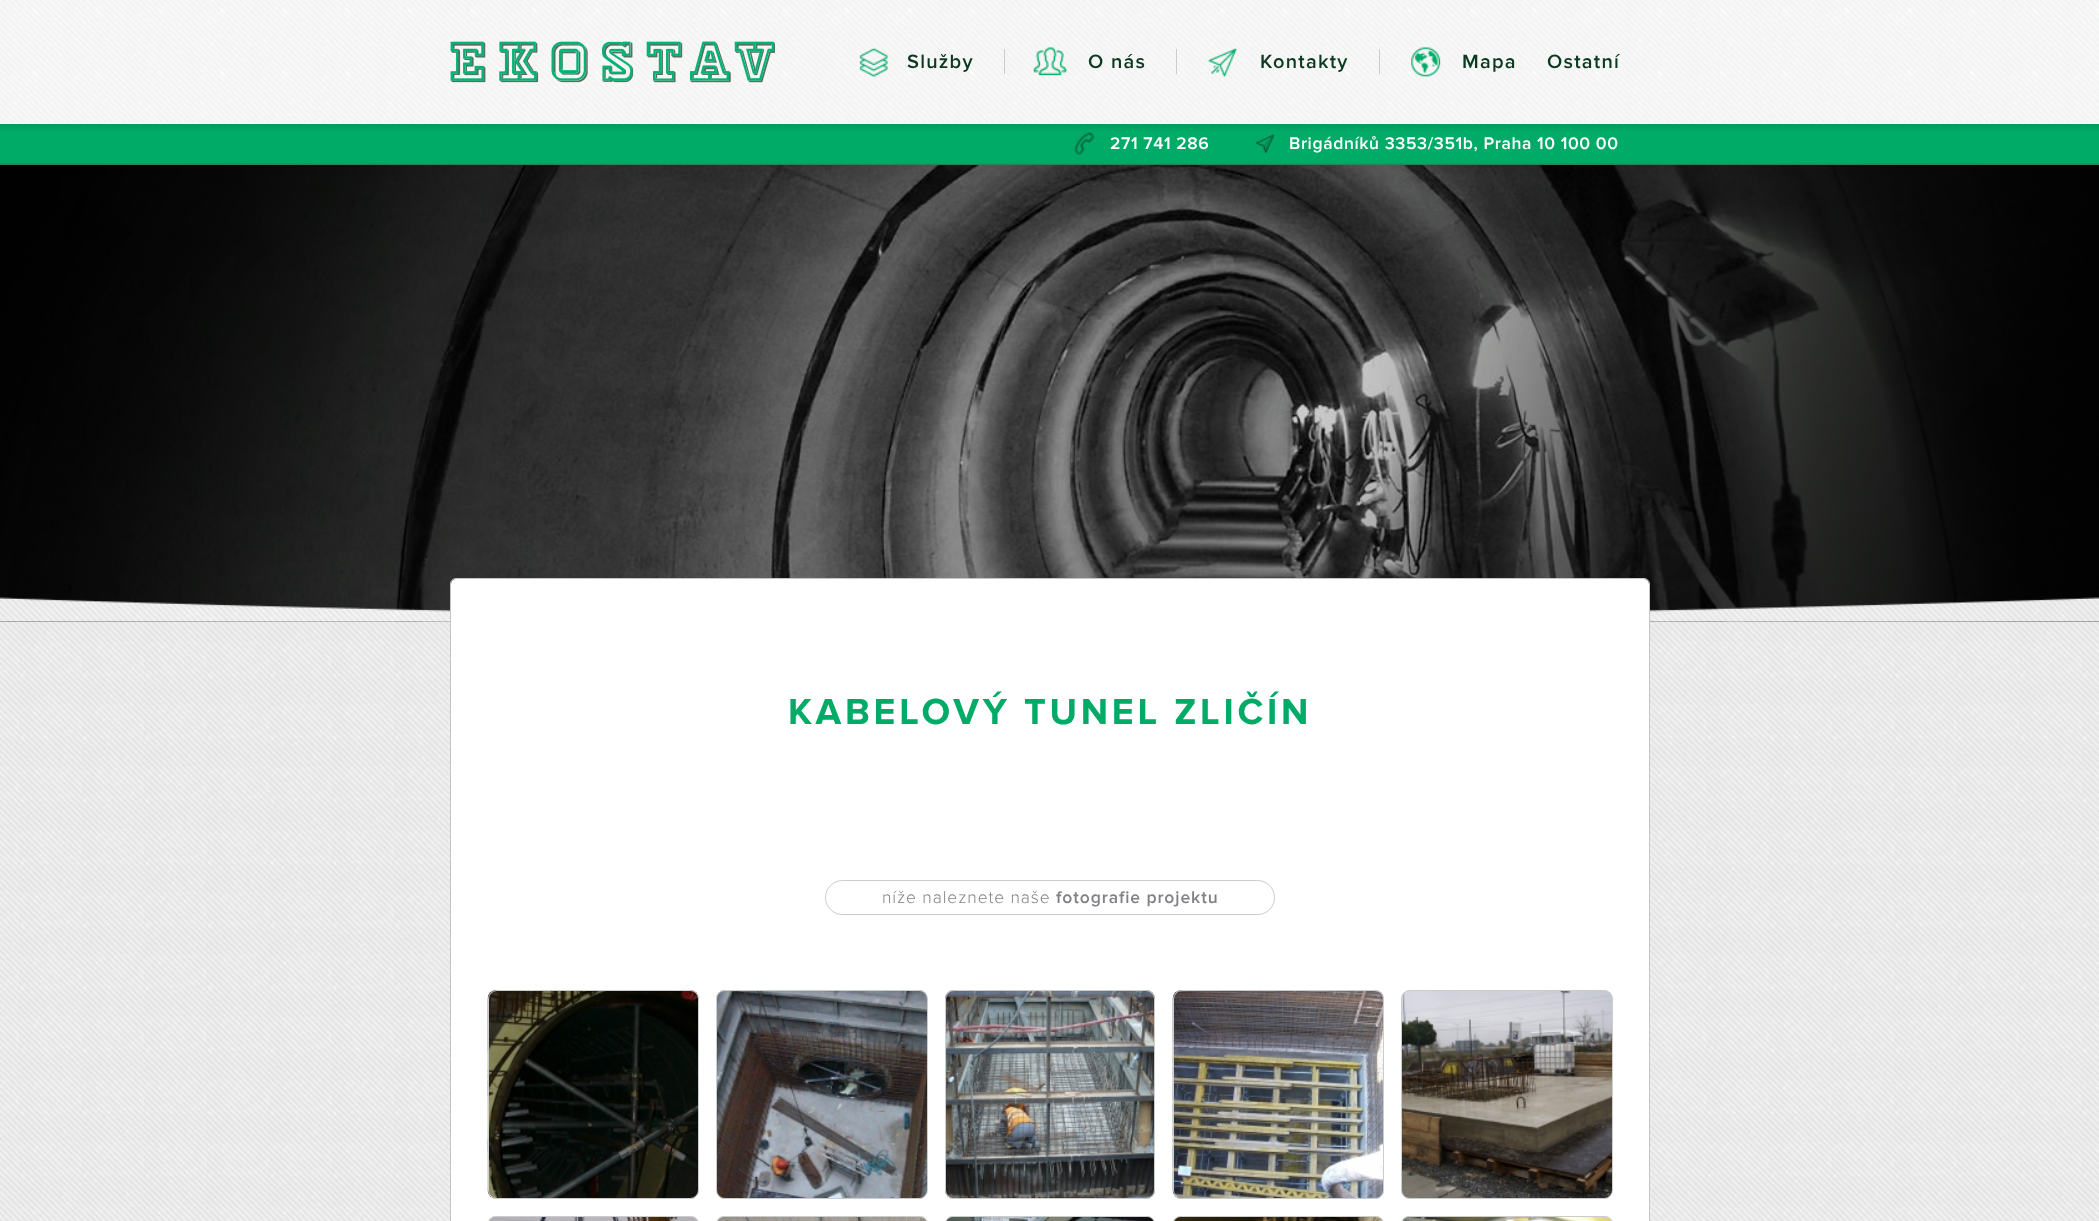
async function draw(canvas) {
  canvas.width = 2099
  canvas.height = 1221
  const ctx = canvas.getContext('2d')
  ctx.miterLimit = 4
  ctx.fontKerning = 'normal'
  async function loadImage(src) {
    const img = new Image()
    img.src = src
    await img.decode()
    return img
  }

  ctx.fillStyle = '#fff'
  ctx.fillRect(0, 0, 2099, 1221)
  ctx.drawImage(await loadImage('image0.png'), 0, 621, 2099, 600)
  ctx.drawImage(await loadImage('image1.png'), 0, 0, 2099, 123)
  ctx.drawImage(await loadImage('image2.png'), 450, 41, 325, 42)
  ctx.drawImage(await loadImage('image3.png'), 859, 48, 29, 29)
  ctx.letterSpacing = '1.25px'
  ctx.font = '600 20px Proxima Nova'
  ctx.fillStyle = '#0c3a20'
  ctx.fillText('Služby', 907, 68)
  ctx.drawImage(await loadImage('image4.png'), 1033, 47, 34, 29)
  ctx.fillStyle = '#cbccce'
  ctx.fillRect(1004, 49, 1, 25)
  ctx.fillStyle = '#0c3a20'
  ctx.fillText('O nás', 1088, 68)
  ctx.drawImage(await loadImage('image5.png'), 1208, 48, 29, 29)
  ctx.fillStyle = '#cbccce'
  ctx.fillRect(1176, 49, 1, 25)
  ctx.fillStyle = '#0c3a20'
  ctx.fillText('Kontakty', 1260, 68)
  ctx.drawImage(await loadImage('image6.png'), 1411, 47, 30, 30)
  ctx.fillStyle = '#cbccce'
  ctx.fillRect(1379, 49, 1, 25)
  ctx.fillStyle = '#0c3a20'
  ctx.fillText('Mapa', 1462, 68)
  ctx.fillText('Ostatní', 1547, 68)
  ctx.drawImage(await loadImage('image7.png'), 0, 124, 2099, 41)
  ctx.drawImage(await loadImage('image8.png'), 1074, 132, 21, 23)
  ctx.letterSpacing = '0.6px'
  ctx.font = '600 17.5px Proxima Nova'
  ctx.fillStyle = '#fff'
  ctx.fillText('271 741 286', 1110, 149)
  ctx.drawImage(await loadImage('image9.png'), 1255, 134, 20, 20)
  ctx.fillText('Brigádníků 3353/351b, Praha 10 100 00', 1289, 149)
  ctx.drawImage(await loadImage('image10.png'), 0, 165, 2099, 457)
  ctx.drawImage(await loadImage('image11.png'), 0, 165, 2099, 457)
  ctx.beginPath()
  ctx.roundRect(451, 579, 1198, 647, 5)
  ctx.fill()
  ctx.beginPath()
  ctx.roundRect(450.5, 578.5, 1199, 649, 5.5)
  ctx.strokeStyle = '#c4c5c7'
  ctx.stroke()
  ctx.letterSpacing = '3.75px'
  ctx.font = 'bold 37.5px Proxima Nova'
  ctx.fillStyle = '#00ab67'
  ctx.fillText('KABELOVÝ TUNEL ZLIČÍN', 788, 724)
  ctx.beginPath()
  ctx.roundRect(825.5, 880.5, 449, 34, 17)
  ctx.strokeStyle = '#cbccce'
  ctx.stroke()
  ctx.letterSpacing = '0.9px'
  ctx.font = '300 17.5px Proxima Nova'
  ctx.fillStyle = '#808185'
  ctx.fillText('níže naleznete naše', 882, 903)
  ctx.font = '600 17.5px Proxima Nova'
  ctx.fillText('fotografie projektu', 1056, 903)
  ctx.drawImage(await loadImage('image12.png'), 487, 990, 212, 209)
  ctx.beginPath()
  ctx.roundRect(488.5, 990.5, 210, 208, 8.5)
  ctx.stroke()
  ctx.drawImage(await loadImage('image13.png'), 716, 990, 212, 209)
  ctx.beginPath()
  ctx.roundRect(716.5, 990.5, 211, 208, 8.5)
  ctx.stroke()
  ctx.drawImage(await loadImage('image14.png'), 945, 990, 210, 209)
  ctx.beginPath()
  ctx.roundRect(945.5, 990.5, 209, 208, 8.5)
  ctx.stroke()
  ctx.drawImage(await loadImage('image15.png'), 1172, 990, 212, 209)
  ctx.beginPath()
  ctx.roundRect(1173.5, 990.5, 210, 208, 8.5)
  ctx.stroke()
  ctx.drawImage(await loadImage('image16.png'), 1401, 990, 212, 209)
  ctx.beginPath()
  ctx.roundRect(1401.5, 990.5, 211, 208, 8.5)
  ctx.stroke()
  ctx.drawImage(await loadImage('image17.png'), 488, 1216, 210, 5)
  ctx.beginPath()
  ctx.roundRect(488.5, 1216.5, 210, 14, 8.5)
  ctx.stroke()
  ctx.drawImage(await loadImage('image18.png'), 717, 1216, 210, 5)
  ctx.beginPath()
  ctx.roundRect(716.5, 1216.5, 211, 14, 8.5)
  ctx.stroke()
  ctx.drawImage(await loadImage('image19.png'), 946, 1216, 208, 5)
  ctx.beginPath()
  ctx.roundRect(945.5, 1216.5, 209, 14, 8.5)
  ctx.stroke()
  ctx.drawImage(await loadImage('image20.png'), 1173, 1216, 210, 5)
  ctx.beginPath()
  ctx.roundRect(1173.5, 1216.5, 210, 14, 8.5)
  ctx.stroke()
  ctx.drawImage(await loadImage('image21.png'), 1402, 1216, 210, 5)
  ctx.beginPath()
  ctx.roundRect(1401.5, 1216.5, 211, 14, 8.5)
  ctx.stroke()
}

draw(document.querySelector('canvas'))
